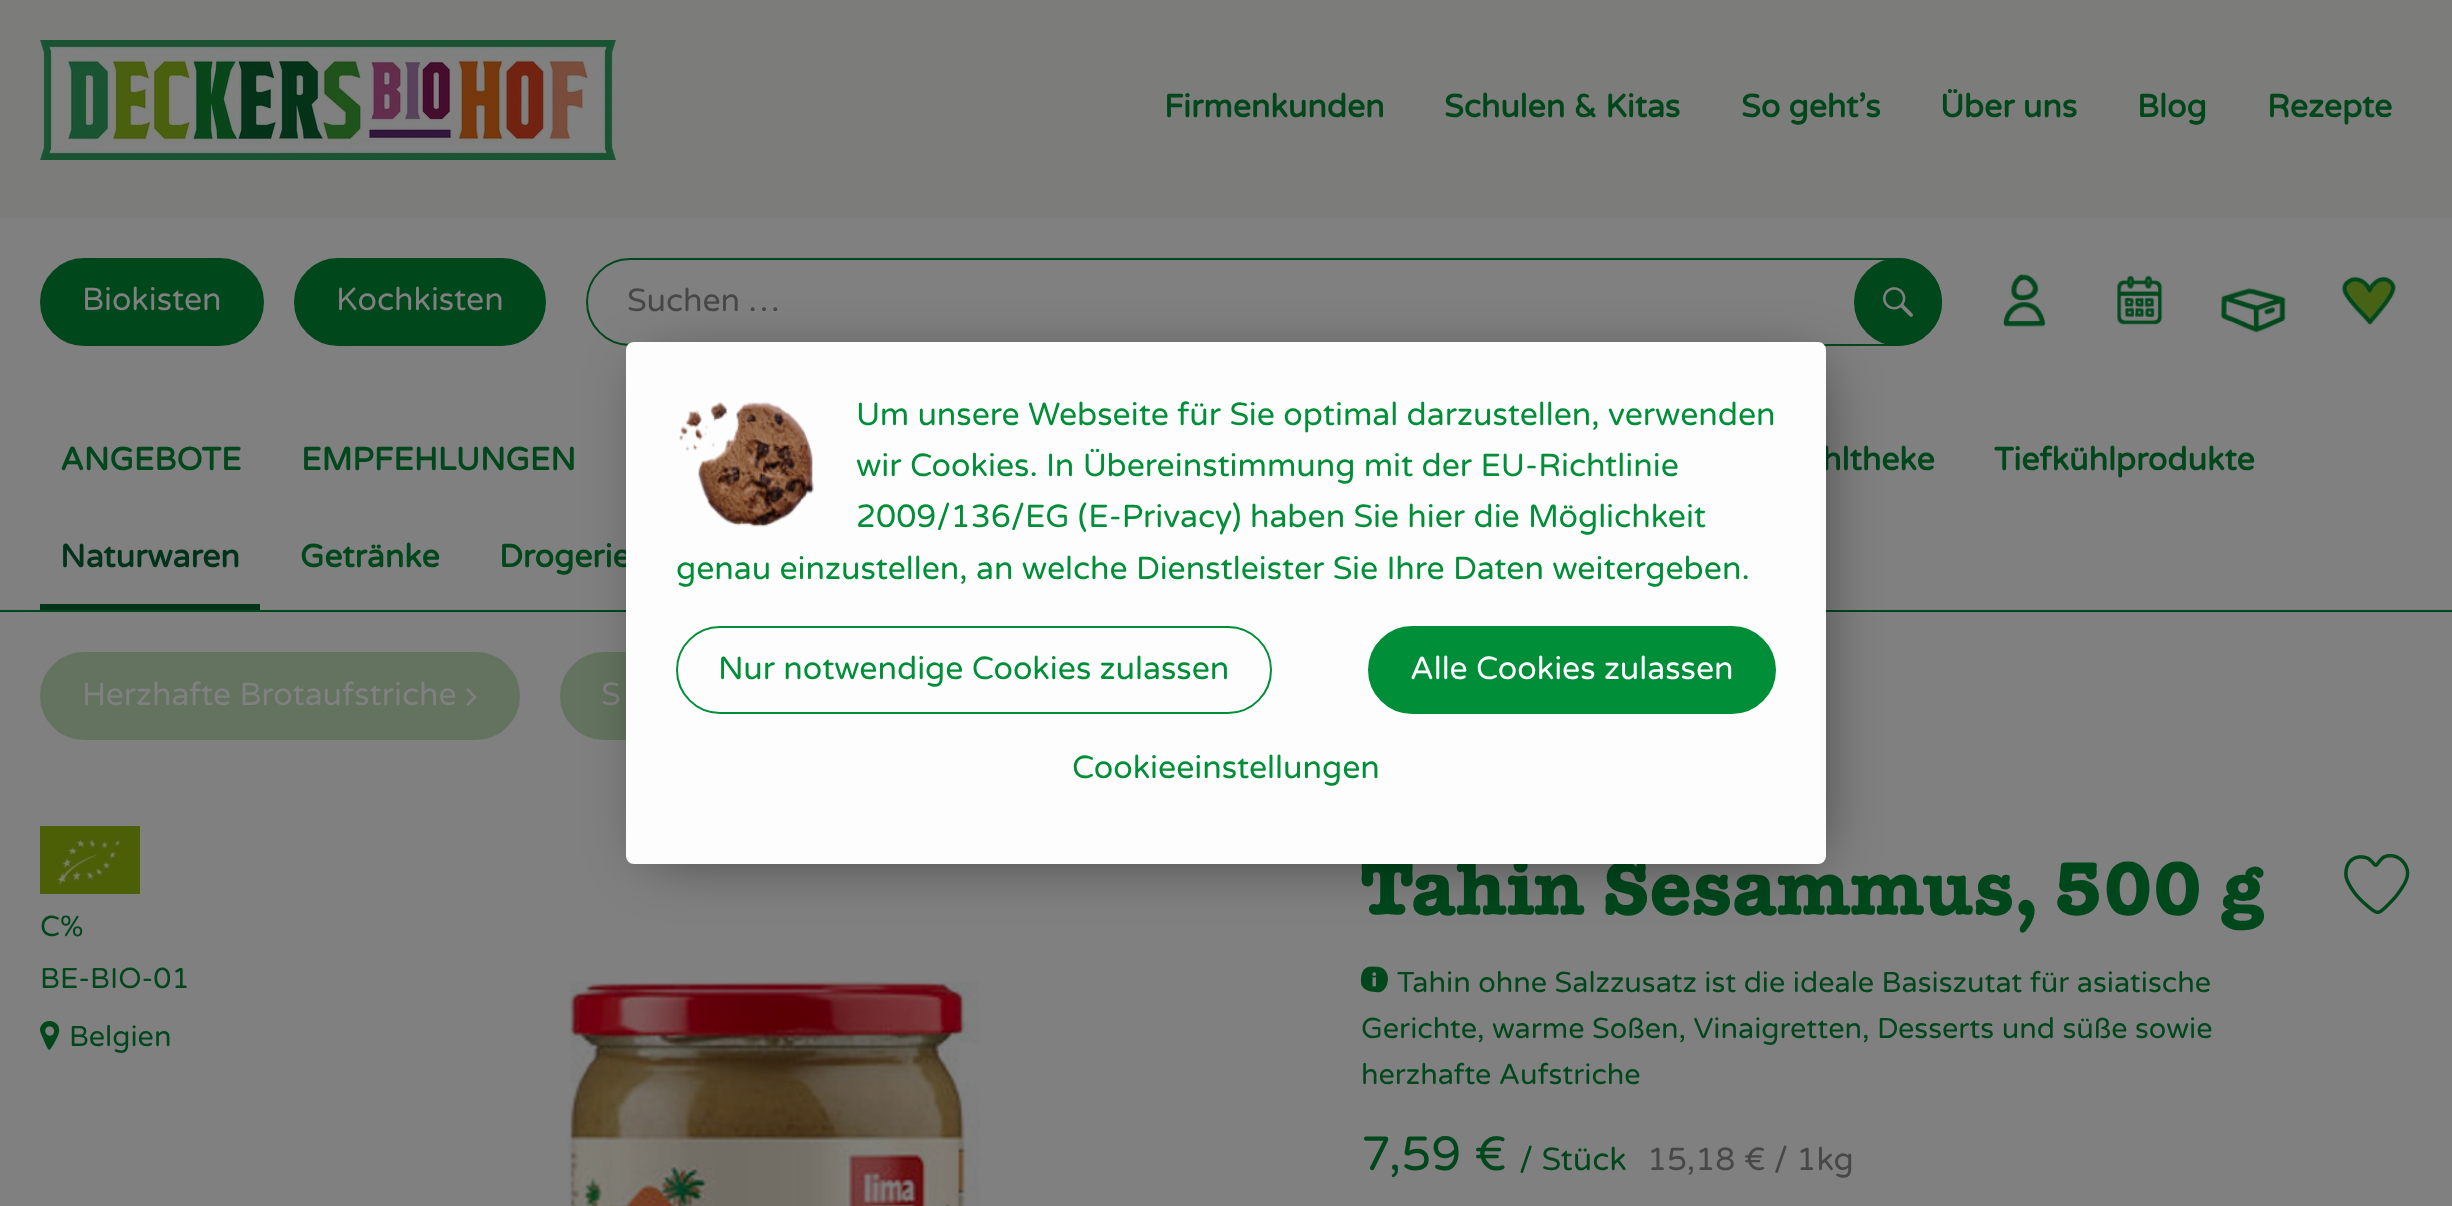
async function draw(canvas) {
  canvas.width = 2452
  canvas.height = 1206
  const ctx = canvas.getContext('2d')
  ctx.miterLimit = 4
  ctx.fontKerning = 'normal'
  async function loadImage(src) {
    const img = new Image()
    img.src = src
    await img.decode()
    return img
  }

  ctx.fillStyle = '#808080'
  ctx.fillRect(0, 0, 2452, 1206)
  ctx.fillStyle = '#7c7c7b'
  ctx.fillRect(0, 0, 2452, 218)
  ctx.drawImage(await loadImage('image0.png'), 40, 40, 576, 120)
  ctx.font = 'bold 32px Varela Round'
  ctx.fillStyle = '#00471c'
  ctx.fillText('Firmenkunden', 1164, 117)
  ctx.fillText('Schulen & Kitas', 1444, 117)
  ctx.fillText('So geht’s', 1741, 117)
  ctx.fillText('Über uns', 1940, 117)
  ctx.fillText('Blog', 2137, 117)
  ctx.fillText('Rezepte', 2267, 117)
  ctx.beginPath()
  ctx.roundRect(41, 259, 222, 86, 43)
  ctx.fill()
  ctx.strokeStyle = '#00471c'
  ctx.lineWidth = 2
  ctx.stroke()
  ctx.font = '32px Varela Round'
  ctx.fillStyle = '#808080'
  ctx.fillText('Biokisten', 82, 310)
  ctx.fillStyle = '#00471c'
  ctx.beginPath()
  ctx.roundRect(295, 259, 250, 86, 43)
  ctx.fill()
  ctx.stroke()
  ctx.fillStyle = '#808080'
  ctx.fillText('Kochkisten', 336, 310)
  ctx.beginPath()
  ctx.roundRect(587, 259, 1354, 86, 43)
  ctx.stroke()
  ctx.fillStyle = '#474747'
  ctx.fillText('Suchen …', 627, 311)
  ctx.fillStyle = '#00471c'
  ctx.beginPath()
  ctx.arc(1898, 302, 43, 0, 2 * Math.PI)
  ctx.fill()
  ctx.stroke()
  ctx.drawImage(await loadImage('image1.png'), 1883, 287, 30, 30)
  ctx.drawImage(await loadImage('image2.png'), 2003, 273, 43, 54)
  ctx.drawImage(await loadImage('image3.png'), 2117, 275, 46, 50)
  ctx.drawImage(await loadImage('image4.png'), 2220, 288, 66, 45)
  ctx.drawImage(await loadImage('image5.png'), 2341, 276, 56, 49)
  ctx.fillRect(0, 610, 2452, 2)
  ctx.font = 'bold 32px Varela Round'
  ctx.fillText('ANGEBOTE', 60, 470)
  ctx.fillText('EMPFEHLUNGEN', 301, 470)
  ctx.fillText('hltheke', 1822, 470)
  ctx.fillText('Tiefkühlprodukte', 1994, 470)
  ctx.fillStyle = '#01331a'
  ctx.fillRect(40, 604, 220, 6)
  ctx.fillText('Naturwaren', 60, 567)
  ctx.fillStyle = '#00471c'
  ctx.fillText('Getränke', 300, 567)
  ctx.fillText('Drogerie', 499, 567)
  ctx.fillStyle = '#63735f'
  ctx.beginPath()
  ctx.roundRect(41, 653, 478, 86, 43)
  ctx.fill()
  ctx.strokeStyle = '#63735f'
  ctx.stroke()
  ctx.font = '32px Varela Round'
  ctx.fillStyle = '#808080'
  ctx.fillText('Herzhafte Brotaufstriche', 82, 705)
  ctx.drawImage(await loadImage('image6.png'), 466, 688, 11, 18)
  ctx.fillStyle = '#63735f'
  ctx.beginPath()
  ctx.roundRect(561, 653, 404, 86, 43)
  ctx.fill()
  ctx.stroke()
  ctx.fillStyle = '#808080'
  ctx.fillText('S', 601, 705)
  ctx.drawImage(await loadImage('image7.png'), 40, 826, 100, 68)
  ctx.font = '28.8px Varela Round'
  ctx.fillStyle = '#00471c'
  ctx.fillText('C%', 40, 936)
  ctx.fillText('BE-BIO-01', 40, 988)
  ctx.drawImage(await loadImage('image8.png'), 40, 1021, 20, 29)
  ctx.fillText('Belgien', 69, 1046)
  ctx.drawImage(await loadImage('image9.png'), 567, 981, 413, 225)
  ctx.font = 'bold 75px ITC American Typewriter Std'
  ctx.fillText('Tahin Sesammus, 500 g', 1361, 914)
  ctx.drawImage(await loadImage('image10.png'), 1360, 966, 28, 27)
  ctx.font = '28.8px Varela Round'
  ctx.fillText('Tahin ohne Salzzusatz ist die ideale Basiszutat für asiatische', 1397, 992)
  ctx.fillText('Gerichte, warme Soßen, Vinaigretten, Desserts und süße sowie', 1361, 1038)
  ctx.fillText('herzhafte Aufstriche', 1361, 1084)
  ctx.font = '48px Varela Round'
  ctx.fillText('7,59 €', 1361, 1170)
  ctx.font = '32px Varela Round'
  ctx.fillText('/ Stück', 1519, 1170)
  ctx.fillStyle = '#474747'
  ctx.fillText('15,18 € / 1kg', 1647, 1170)
  ctx.drawImage(await loadImage('image11.png'), 2344, 854, 66, 60)
  ctx.fillStyle = '#00000080'
  ctx.filter = 'blur(30px)'
  ctx.beginPath()
  ctx.rect(650, 366, 1168, 490)
  ctx.fill()
  ctx.filter = 'none'
  ctx.fillStyle = '#fdfdfd'
  ctx.beginPath()
  ctx.roundRect(626, 342, 1200, 522, 8)
  ctx.fill()
  ctx.drawImage(await loadImage('image12.png'), 679, 402, 135, 125)
  ctx.fillStyle = '#008e38'
  ctx.fillText('Um unsere Webseite für Sie optimal darzustellen, verwenden', 856, 425)
  ctx.fillText('wir Cookies. In Übereinstimmung mit der EU-Richtlinie', 856, 476)
  ctx.fillText('2009/136/EG (E-Privacy) haben Sie hier die Möglichkeit', 856, 527)
  ctx.fillText('genau einzustellen, an welche Dienstleister Sie Ihre Daten weitergeben.', 676, 579)
  ctx.beginPath()
  ctx.roundRect(677, 627, 594, 86, 43)
  ctx.strokeStyle = '#008e38'
  ctx.stroke()
  ctx.fillText('Nur notwendige Cookies zulassen', 718, 679)
  ctx.beginPath()
  ctx.roundRect(1369, 627, 406, 86, 43)
  ctx.fill()
  ctx.stroke()
  ctx.fillStyle = '#fff'
  ctx.fillText('Alle Cookies zulassen', 1410, 679)
  ctx.fillStyle = '#008e38'
  ctx.fillText('Cookieeinstellungen', 1072, 778)
}

draw(document.querySelector('canvas'))
